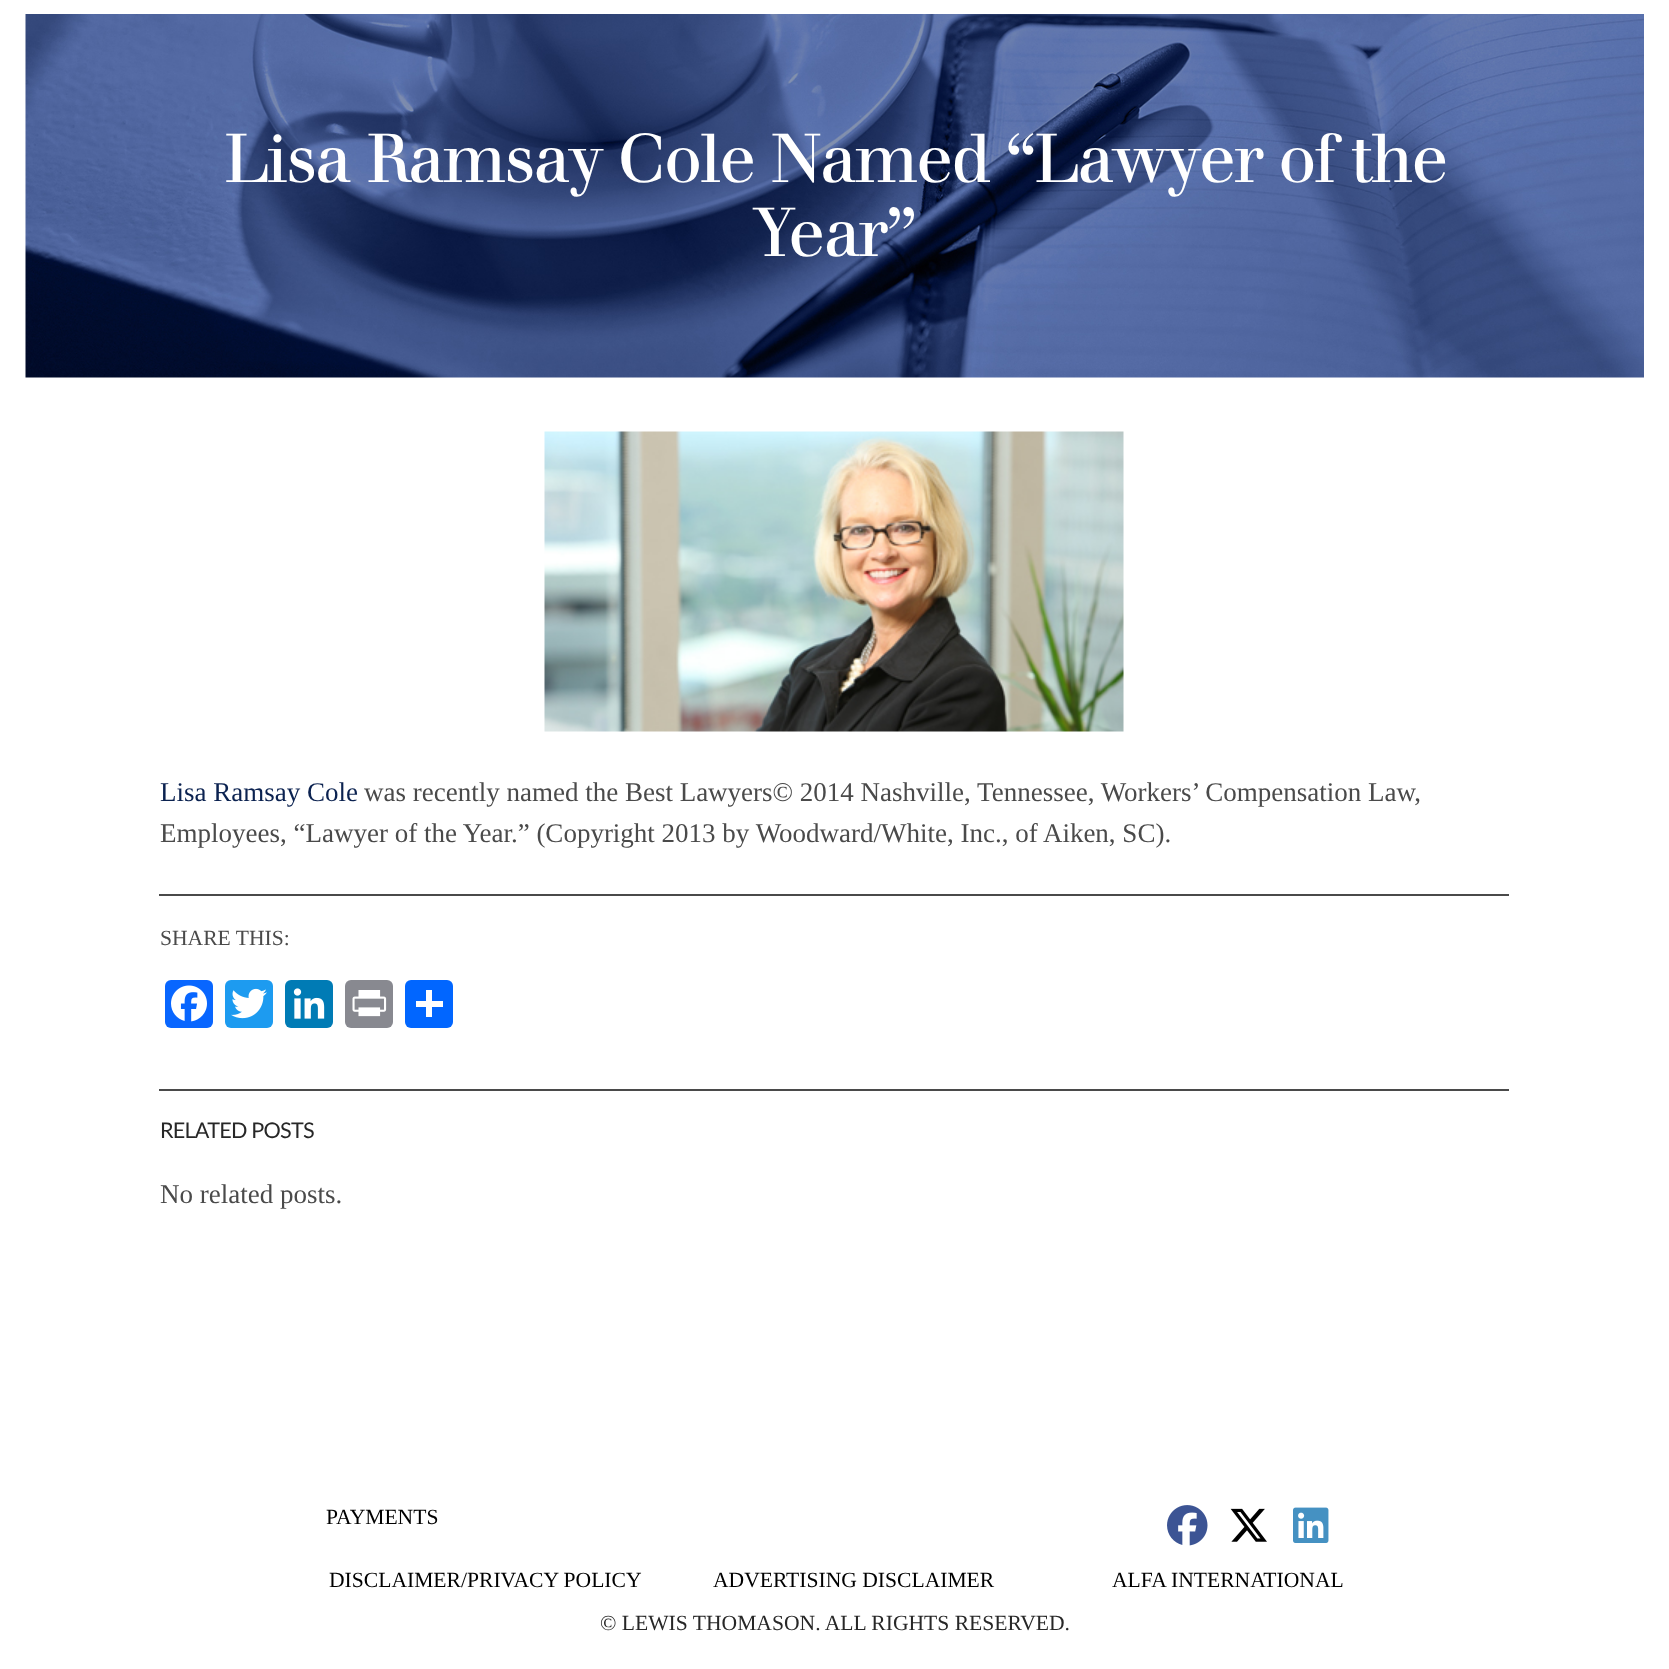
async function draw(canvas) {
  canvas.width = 1669
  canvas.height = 1669
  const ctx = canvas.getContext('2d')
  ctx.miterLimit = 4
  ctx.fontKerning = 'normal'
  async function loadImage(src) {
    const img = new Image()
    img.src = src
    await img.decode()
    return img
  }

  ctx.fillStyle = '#fff'
  ctx.fillRect(0, 0, 1669, 1669)
  ctx.drawImage(await loadImage('image0.png'), 25, 14, 1619, 364)
  ctx.letterSpacing = '-2.35px'
  ctx.font = '67.5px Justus'
  ctx.fillText('Lisa Ramsay Cole Named “Lawyer of the', 224, 182)
  ctx.fillText('Year”', 754, 256)
  ctx.drawImage(await loadImage('image1.png'), 544, 431, 580, 301)
  ctx.letterSpacing = '0px'
  ctx.font = '27px Liberation Serif'
  ctx.fillStyle = '#0b2250'
  ctx.fillText('Lisa Ramsay Cole', 160, 801)
  ctx.fillStyle = '#4a4a4a'
  ctx.fillText('was recently named the Best Lawyers© 2014 Nashville, Tennessee, Workers’ Compensation Law,', 364, 801)
  ctx.fillText('Employees, “Lawyer of the Year.” (Copyright 2013 by Woodward/White, Inc., of Aiken, SC).', 160, 842)
  ctx.fillRect(159, 894, 1350, 2)
  ctx.font = '21.6px Liberation Serif'
  ctx.fillText('SHARE THIS:', 160, 945)
  ctx.fillStyle = '#0866ff'
  ctx.beginPath()
  ctx.roundRect(165, 980, 48, 48, 6)
  ctx.fill()
  ctx.drawImage(await loadImage('image2.png'), 171, 985, 36, 37)
  ctx.fillStyle = '#1d9bf0'
  ctx.beginPath()
  ctx.roundRect(225, 980, 48, 48, 6)
  ctx.fill()
  ctx.drawImage(await loadImage('image3.png'), 231, 988, 36, 31)
  ctx.fillStyle = '#007bb5'
  ctx.beginPath()
  ctx.roundRect(285, 980, 48, 48, 6)
  ctx.fill()
  ctx.drawImage(await loadImage('image4.png'), 293, 988, 32, 31)
  ctx.fillStyle = '#888990'
  ctx.beginPath()
  ctx.roundRect(345, 980, 48, 48, 6)
  ctx.fill()
  ctx.drawImage(await loadImage('image5.png'), 352, 990, 35, 27)
  ctx.fillStyle = '#0166ff'
  ctx.beginPath()
  ctx.roundRect(405, 980, 48, 48, 6)
  ctx.fill()
  ctx.fillStyle = '#fff'
  ctx.fillRect(426, 990, 6, 27)
  ctx.fillRect(416, 1001, 27, 6)
  ctx.fillStyle = '#4a4a4a'
  ctx.fillRect(159, 1089, 1350, 2)
  ctx.letterSpacing = '-0.75px'
  ctx.font = '21.6px Lato'
  ctx.fillStyle = '#272727'
  ctx.fillText('RELATED POSTS', 160, 1138)
  ctx.letterSpacing = '0px'
  ctx.font = '27px Liberation Serif'
  ctx.fillStyle = '#4a4a4a'
  ctx.fillText('No related posts.', 160, 1203)
  ctx.font = '21.6px Liberation Serif'
  ctx.fillStyle = '#000'
  ctx.fillText('PAYMENTS', 326, 1524)
  ctx.drawImage(await loadImage('image6.png'), 1167, 1505, 41, 41)
  ctx.drawImage(await loadImage('image7.png'), 1230, 1508, 37, 34)
  ctx.drawImage(await loadImage('image8.png'), 1293, 1507, 36, 36)
  ctx.fillText('DISCLAIMER/PRIVACY POLICY', 329, 1587)
  ctx.fillText('ADVERTISING DISCLAIMER', 713, 1587)
  ctx.fillText('ALFA INTERNATIONAL', 1112, 1587)
  ctx.fillStyle = '#272727'
  ctx.fillText('© LEWIS THOMASON. ALL RIGHTS RESERVED.', 600, 1630)
}

draw(document.querySelector('canvas'))
